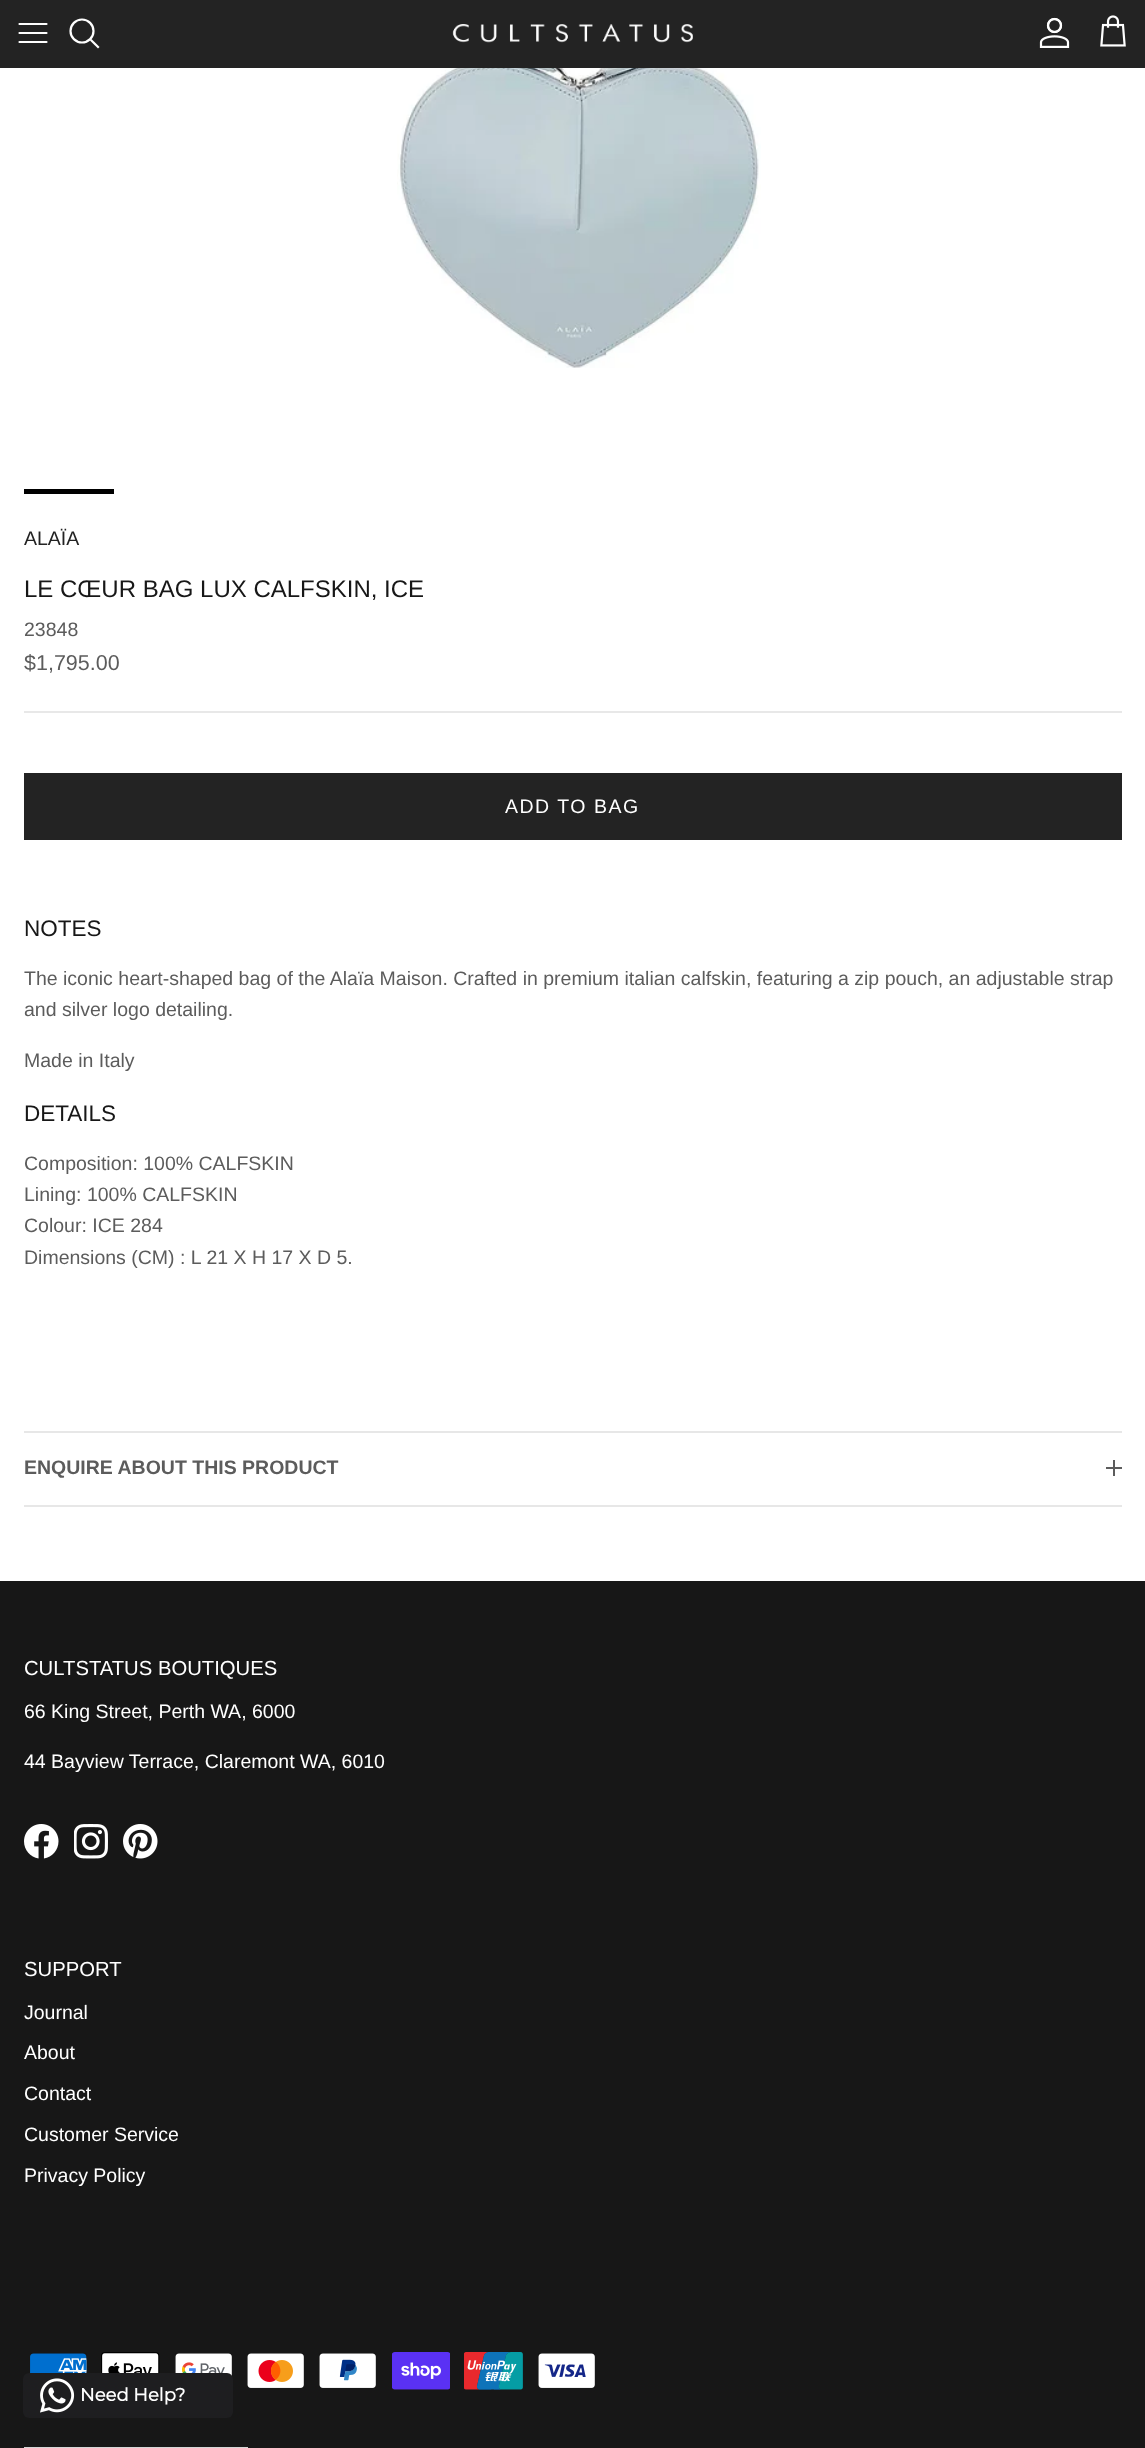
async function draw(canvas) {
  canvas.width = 1145
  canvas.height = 2448
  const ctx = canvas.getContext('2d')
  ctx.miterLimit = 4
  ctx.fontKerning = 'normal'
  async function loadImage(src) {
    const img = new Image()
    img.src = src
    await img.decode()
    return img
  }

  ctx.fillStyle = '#fff'
  ctx.fillRect(0, 0, 1145, 2448)
  ctx.fillStyle = '#232323'
  ctx.fillRect(0, 0, 1145, 68)
  ctx.beginPath()
  ctx.moveTo(19.5, 33)
  ctx.lineTo(46.5, 33)
  ctx.moveTo(19.5, 24)
  ctx.lineTo(46.5, 24)
  ctx.moveTo(19.5, 42)
  ctx.lineTo(46.5, 42)
  ctx.strokeStyle = '#fff'
  ctx.lineWidth = 2.2
  ctx.lineCap = 'round'
  ctx.lineJoin = 'round'
  ctx.stroke()
  ctx.beginPath()
  ctx.arc(82, 31, 11.5, 0, 2 * Math.PI)
  ctx.stroke()
  ctx.beginPath()
  ctx.moveTo(91.5, 40.5)
  ctx.lineTo(98, 47)
  ctx.lineCap = 'square'
  ctx.lineJoin = 'miter'
  ctx.stroke()
  ctx.drawImage(await loadImage('image0.png'), 452, 24, 241, 19)
  ctx.drawImage(await loadImage('image1.png'), 1039, 17, 31, 31)
  ctx.drawImage(await loadImage('image2.png'), 1100, 15, 26, 32)
  ctx.drawImage(await loadImage('image3.png'), 397, 68, 364, 300)
  ctx.fillStyle = '#000'
  ctx.fillRect(24, 489, 90, 5)
  ctx.font = '19.5px Liberation Sans'
  ctx.fillStyle = '#232323'
  ctx.fillText('ALAÏA', 24, 545)
  ctx.font = '24px Liberation Sans'
  ctx.fillStyle = '#171717'
  ctx.fillText('LE CŒUR BAG LUX CALFSKIN, ICE', 24, 597)
  ctx.font = '19.5px Liberation Sans'
  ctx.fillStyle = '#5c5c5c'
  ctx.fillText('23848', 24, 636)
  ctx.font = '21.5px Liberation Sans'
  ctx.fillText('$1,795.00', 24, 670)
  ctx.fillStyle = '#e8e8e8'
  ctx.fillRect(24, 711, 1098, 2)
  ctx.fillStyle = '#232323'
  ctx.fillRect(24, 773, 1098, 67)
  ctx.letterSpacing = '1.5px'
  ctx.font = '19.5px Liberation Sans'
  ctx.fillStyle = '#fff'
  ctx.fillText('ADD TO BAG', 505, 813)
  ctx.letterSpacing = '0px'
  ctx.font = '22.5px Liberation Sans'
  ctx.fillStyle = '#171717'
  ctx.fillText('NOTES', 24, 936)
  ctx.font = '19.5px Liberation Sans'
  ctx.fillStyle = '#5c5c5c'
  ctx.fillText('The iconic heart-shaped bag of the Alaïa Maison. Crafted in premium italian calfskin, featuring a zip pouch, an adjustable strap', 24, 985)
  ctx.fillText('and silver logo detailing.', 24, 1016)
  ctx.fillText('Made in Italy', 24, 1067)
  ctx.font = '22.5px Liberation Sans'
  ctx.fillStyle = '#171717'
  ctx.fillText('DETAILS', 24, 1121)
  ctx.font = '19.5px Liberation Sans'
  ctx.fillStyle = '#5c5c5c'
  ctx.fillText('Composition: 100% CALFSKIN', 24, 1170)
  ctx.fillText('Lining: 100% CALFSKIN', 24, 1201)
  ctx.fillText('Colour: ICE 284', 24, 1232)
  ctx.fillText('Dimensions (CM) : L 21 X H 17 X D 5.', 24, 1264)
  ctx.fillStyle = '#e7e7e7'
  ctx.fillRect(24, 1431, 1098, 2)
  ctx.fillRect(24, 1505, 1098, 2)
  ctx.font = 'bold 19.5px Liberation Sans'
  ctx.fillStyle = '#5c5c5c'
  ctx.fillText('ENQUIRE ABOUT THIS PRODUCT', 24, 1474)
  ctx.fillRect(1113, 1460, 2, 16)
  ctx.fillRect(1106, 1467, 16, 2)
  ctx.fillStyle = '#171717'
  ctx.fillRect(0, 1581, 1145, 867)
  ctx.font = '20.25px Liberation Sans'
  ctx.fillStyle = '#fff'
  ctx.fillText('CULTSTATUS BOUTIQUES', 24, 1675)
  ctx.font = '19.5px Liberation Sans'
  ctx.fillText('66 King Street, Perth WA, 6000', 24, 1718)
  ctx.fillText('44 Bayview Terrace, Claremont WA, 6010', 24, 1768)
  ctx.drawImage(await loadImage('image4.png'), 24, 1824, 35, 35)
  ctx.drawImage(await loadImage('image5.png'), 74, 1824, 34, 35)
  ctx.drawImage(await loadImage('image6.png'), 123, 1824, 35, 35)
  ctx.font = '20.25px Liberation Sans'
  ctx.fillText('SUPPORT', 24, 1976)
  ctx.font = '19.5px Liberation Sans'
  ctx.fillText('Journal', 24, 2019)
  ctx.fillText('About', 24, 2059)
  ctx.fillText('Contact', 24, 2100)
  ctx.fillText('Customer Service', 24, 2141)
  ctx.fillText('Privacy Policy', 24, 2182)
  ctx.drawImage(await loadImage('image7.png'), 30, 2353, 57, 20)
  ctx.drawImage(await loadImage('image8.png'), 101, 2352, 59, 21)
  ctx.drawImage(await loadImage('image9.png'), 175, 2353, 57, 23)
  ctx.drawImage(await loadImage('image10.png'), 247, 2353, 57, 35)
  ctx.drawImage(await loadImage('image11.png'), 319, 2353, 57, 35)
  ctx.drawImage(await loadImage('image12.png'), 392, 2352, 58, 38)
  ctx.drawImage(await loadImage('image13.png'), 464, 2352, 59, 38)
  ctx.drawImage(await loadImage('image14.png'), 538, 2353, 57, 35)
  ctx.strokeStyle = '#d6d6d6'
  ctx.lineWidth = 2
  ctx.strokeRect(25, 2448, 222, 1)
  ctx.fillStyle = '#1e1e20'
  ctx.beginPath()
  ctx.roundRect(23, 2373, 210, 45, 6)
  ctx.fill()
  ctx.drawImage(await loadImage('image15.png'), 40, 2378, 35, 35)
  ctx.font = 'bold 18px Montserrat'
  ctx.fillStyle = '#fff'
  ctx.fillText('Need Help?', 80, 2401)
}

draw(document.querySelector('canvas'))
